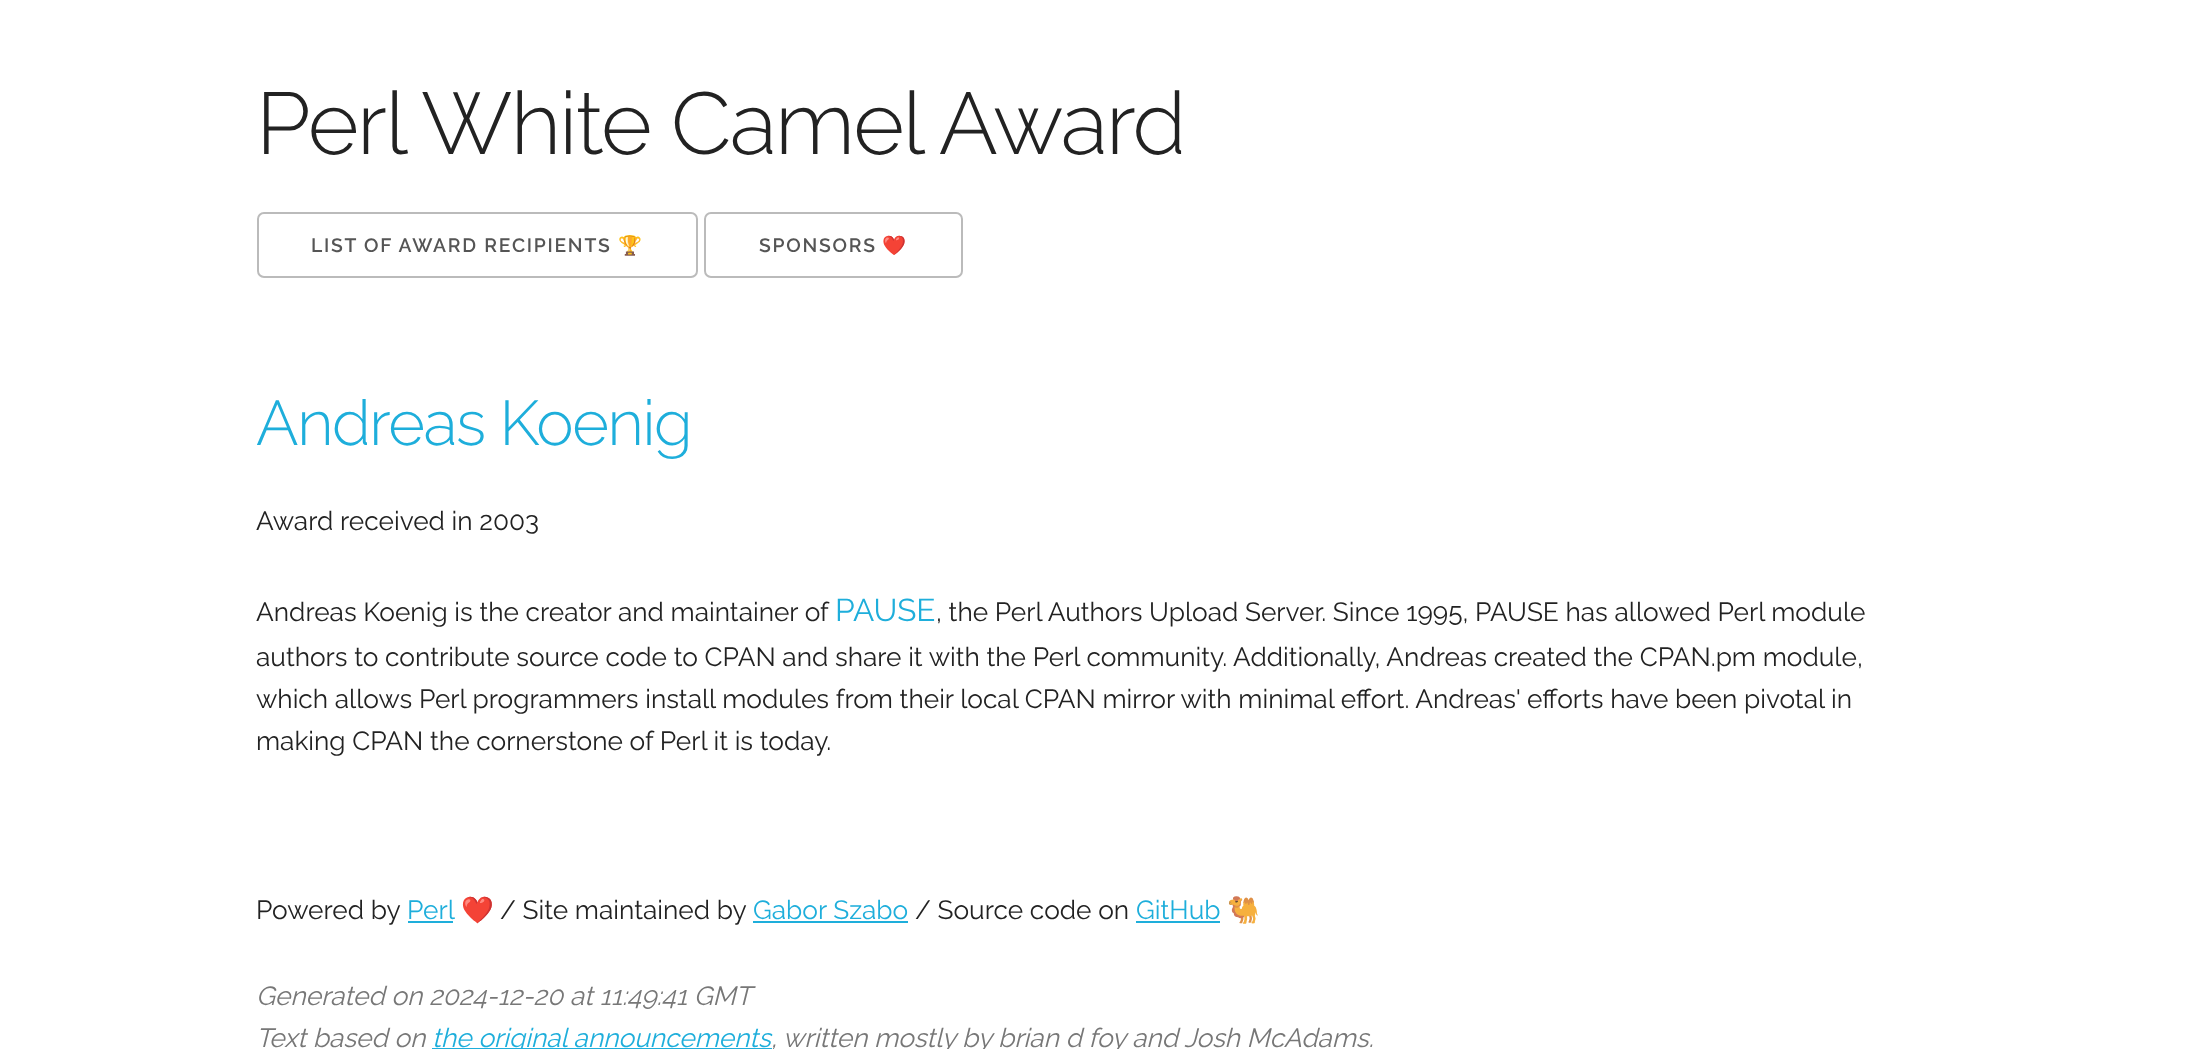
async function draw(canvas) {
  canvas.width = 2192
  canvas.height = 1049
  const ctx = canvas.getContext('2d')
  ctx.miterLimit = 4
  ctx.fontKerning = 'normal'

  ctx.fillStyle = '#fff'
  ctx.fillRect(0, 0, 2192, 1049)
  ctx.letterSpacing = '-1.75px'
  ctx.font = '300 87.5px Raleway'
  ctx.fillStyle = '#222'
  ctx.fillText('Perl White Camel Award', 256, 154)
  ctx.beginPath()
  ctx.roundRect(258, 213, 439, 64, 6)
  ctx.strokeStyle = '#bbb'
  ctx.lineWidth = 2
  ctx.stroke()
  ctx.letterSpacing = '1.75px'
  ctx.font = '600 19.25px Raleway'
  ctx.fillStyle = '#555'
  ctx.fillText('LIST OF AWARD RECIPIENTS', 311, 252)
  ctx.font = 'bold 19.25px Noto Color Emoji'
  ctx.fillText('🏆', 618, 252)
  ctx.beginPath()
  ctx.roundRect(705, 213, 257, 64, 6)
  ctx.stroke()
  ctx.font = '600 19.25px Raleway'
  ctx.fillText('SPONSORS', 759, 252)
  ctx.font = 'bold 19.25px Noto Color Emoji'
  ctx.fillText('❤️', 882, 252)
  ctx.letterSpacing = '-1.4px'
  ctx.font = '300 63px Raleway'
  ctx.fillStyle = '#1eaedb'
  ctx.fillText('Andreas Koenig', 256, 445)
  ctx.letterSpacing = '0px'
  ctx.font = '26.25px Raleway'
  ctx.fillStyle = '#222'
  ctx.fillText('Award received in 2003', 256, 530)
  ctx.fillText('Andreas Koenig is the creator and maintainer of', 256, 621)
  ctx.font = '31.5px Raleway'
  ctx.fillStyle = '#1eaedb'
  ctx.fillText('PAUSE', 835, 621)
  ctx.font = '26.25px Raleway'
  ctx.fillStyle = '#222'
  ctx.fillText(', the Perl Authors Upload Server. Since 1995, PAUSE has allowed Perl module', 936, 621)
  ctx.fillText('authors to contribute source code to CPAN and share it with the Perl community. Additionally, Andreas created the CPAN.pm module,', 256, 666)
  ctx.fillText('which allows Perl programmers install modules from their local CPAN mirror with minimal effort. Andreas\' efforts have been pivotal in', 256, 708)
  ctx.fillText('making CPAN the cornerstone of Perl it is today.', 256, 750)
  ctx.fillText('Powered by', 256, 919)
  ctx.fillStyle = '#1eaedb'
  ctx.fillText('Perl', 407, 919)
  ctx.fillRect(408, 921, 45, 2)
  ctx.font = '26.25px Noto Color Emoji'
  ctx.fillStyle = '#222'
  ctx.fillText('❤️', 461, 919)
  ctx.font = '26.25px Raleway'
  ctx.fillText('/ Site maintained by', 500, 919)
  ctx.fillStyle = '#1eaedb'
  ctx.fillText('Gabor Szabo', 753, 919)
  ctx.fillRect(753, 921, 155, 2)
  ctx.fillStyle = '#222'
  ctx.fillText('/ Source code on', 915, 919)
  ctx.fillStyle = '#1eaedb'
  ctx.fillText('GitHub', 1136, 919)
  ctx.fillRect(1136, 921, 84, 2)
  ctx.font = '26.25px Noto Color Emoji'
  ctx.fillStyle = '#222'
  ctx.fillText('🐫', 1227, 919)
  ctx.font = 'italic 26.25px Raleway'
  ctx.fillStyle = '#777'
  ctx.fillText('Generated on 2024-12-20 at 11:49:41 GMT', 256, 1005)
  ctx.fillText('Text based on', 256, 1047)
  ctx.fillStyle = '#1eaedb'
  ctx.fillRect(432, 1048, 340, 1)
  ctx.fillText('the original announcements', 432, 1047)
  ctx.fillStyle = '#777'
  ctx.fillText(', written mostly by brian d foy and Josh McAdams.', 771, 1047)
}

draw(document.querySelector('canvas'))
